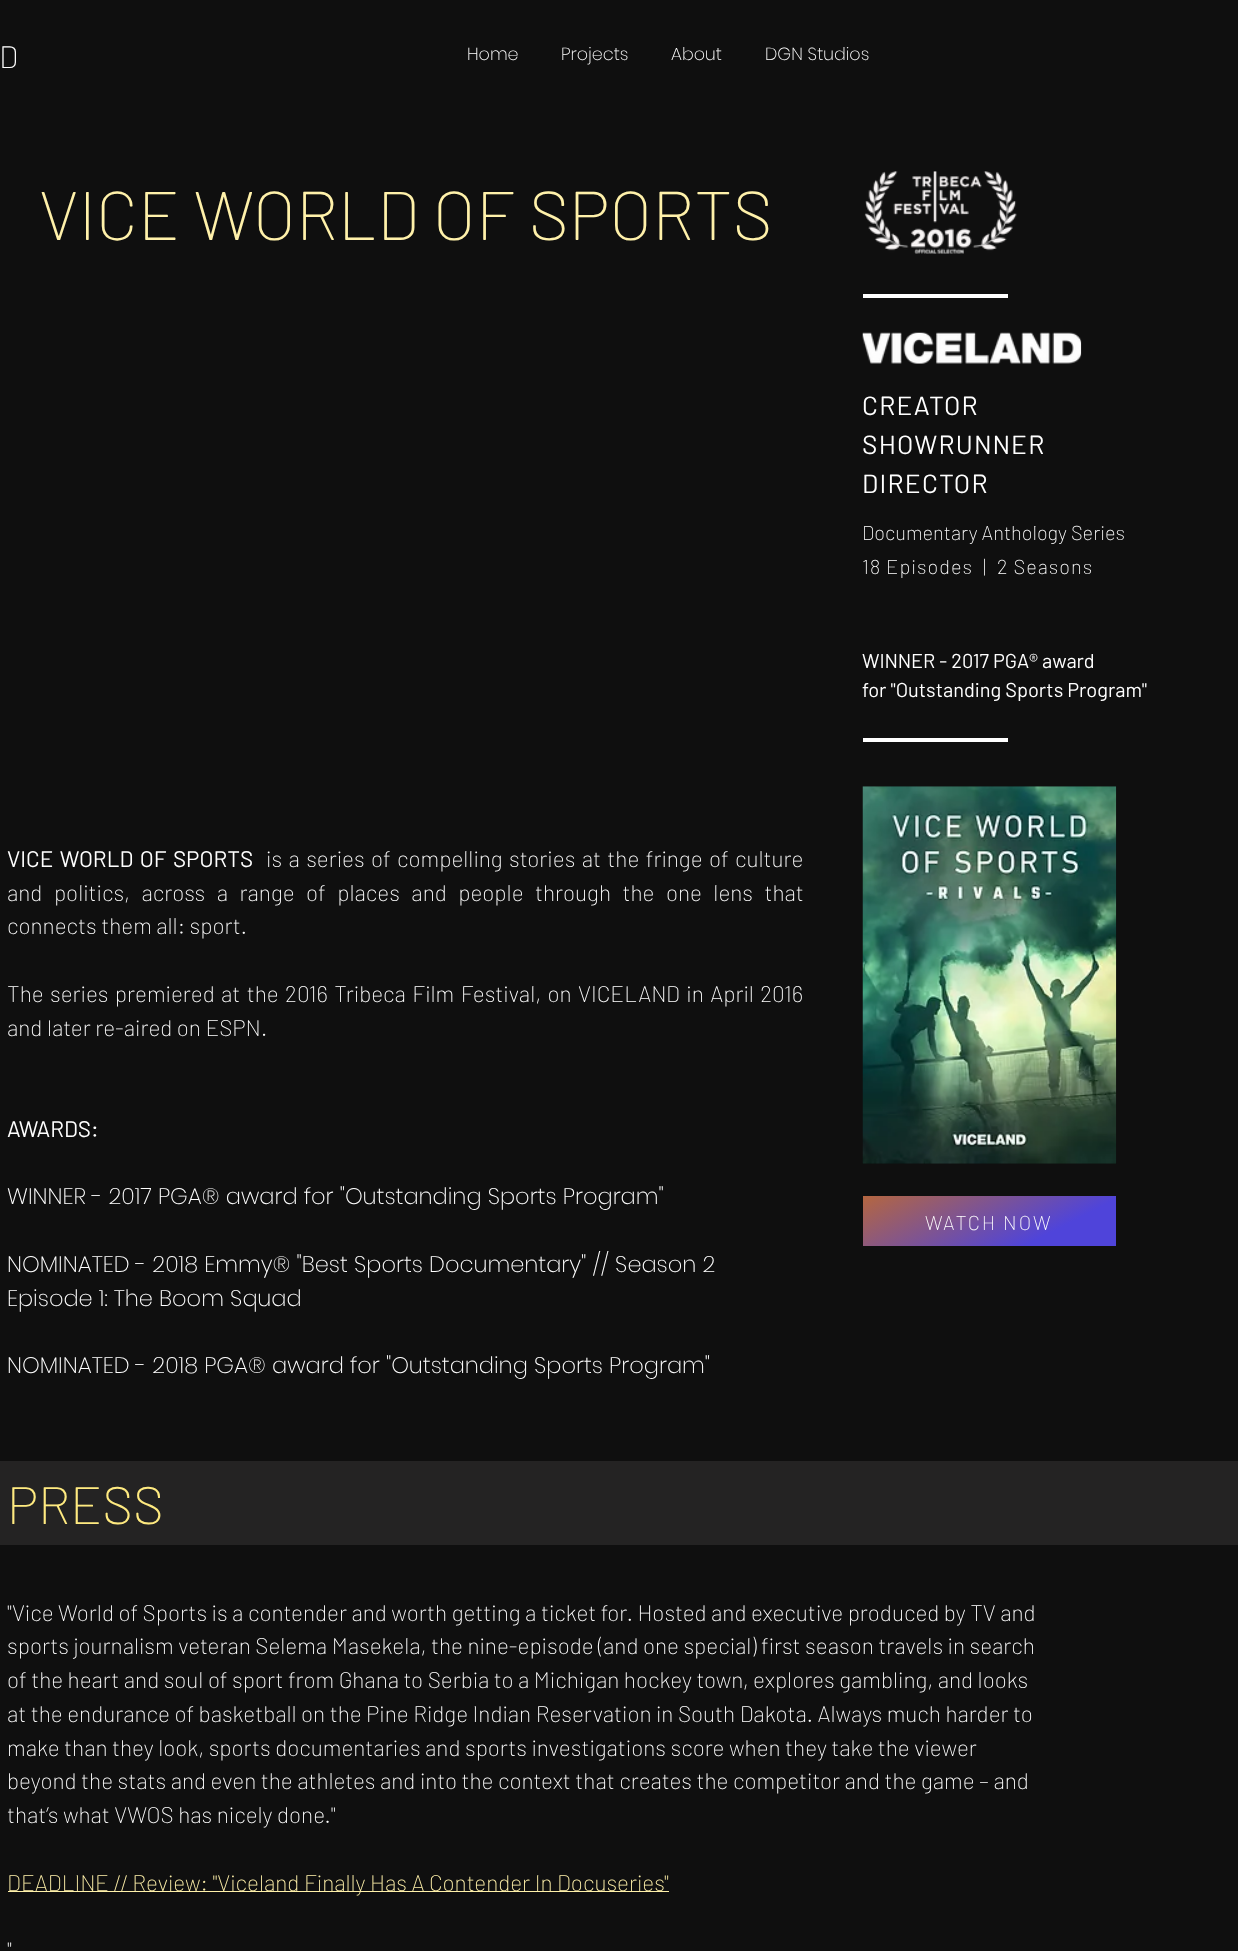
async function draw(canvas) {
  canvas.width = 1238
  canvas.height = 1951
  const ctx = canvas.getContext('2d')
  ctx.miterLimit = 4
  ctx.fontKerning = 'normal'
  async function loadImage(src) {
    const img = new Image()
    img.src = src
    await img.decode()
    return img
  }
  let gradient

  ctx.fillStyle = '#0f0f0f'
  ctx.fillRect(0, 0, 1238, 1951)
  ctx.font = '200 31px Barlow'
  ctx.fillStyle = '#fff'
  ctx.fillText('D', -1, 68)
  ctx.font = '200 17.5px Poppins'
  ctx.fillText('Home', 467, 60)
  ctx.fillText('Projects', 561, 60)
  ctx.fillText('About', 671, 60)
  ctx.fillText('DGN Studios', 765, 60)
  ctx.font = '200 68.75px Barlow'
  ctx.fillStyle = '#fff1aa'
  ctx.fillText('VICE WORLD OF SPORTS', 39, 240)
  ctx.drawImage(await loadImage('image0.png'), 864, 171, 153, 83)
  ctx.fillStyle = '#fff'
  ctx.fillRect(863, 294, 145, 4)
  ctx.drawImage(await loadImage('image1.png'), 862, 332, 220, 32)
  ctx.letterSpacing = '1.25px'
  ctx.font = '26.25px Barlow'
  ctx.fillText('CREATOR', 862, 415)
  ctx.fillText('SHOWRUNNER', 862, 454)
  ctx.fillText('DIRECTOR', 862, 493)
  ctx.letterSpacing = '0px'
  ctx.font = '200 20px Barlow'
  ctx.fillText('Documentary Anthology Series', 862, 540)
  ctx.letterSpacing = '1px'
  ctx.fillText('18 Episodes  |', 862, 574)
  ctx.fillText('2 Seasons', 997, 574)
  ctx.letterSpacing = '0px'
  ctx.font = '20px Barlow'
  ctx.fillText('WINNER - 2017 PGA® award', 862, 668)
  ctx.fillText('for "Outstanding Sports Program"', 862, 697)
  ctx.fillRect(863, 738, 145, 4)
  ctx.wordSpacing = '1.9px'
  ctx.font = '22.5px Barlow'
  ctx.fillText('VICE WORLD OF SPORTS', 7, 867)
  ctx.font = '200 22.5px Barlow'
  ctx.fillText('is a series of compelling stories at the fringe of culture', 266, 867)
  ctx.wordSpacing = '7px'
  ctx.fillText('and politics, across a range of places and people through the one lens that', 7, 901)
  ctx.wordSpacing = '0px'
  ctx.fillText('connects them all: sport.', 7, 934)
  ctx.wordSpacing = '1.9px'
  ctx.fillText('The series premiered at the 2016 Tribeca Film Festival, on VICELAND in April 2016', 7, 1002)
  ctx.wordSpacing = '0px'
  ctx.fillText('and later re-aired on ESPN.', 7, 1036)
  ctx.font = '22.5px Barlow'
  ctx.fillText('AWARDS:', 7, 1137)
  ctx.font = '200 22.5px Poppins'
  ctx.fillText('WINNER - 2017 PGA® award for "Outstanding Sports Program"', 7, 1204)
  ctx.fillText('NOMINATED - 2018 Emmy® "Best Sports Documentary" // Season 2', 7, 1272)
  ctx.fillText('Episode 1: The Boom Squad', 7, 1306)
  ctx.fillText('NOMINATED - 2018 PGA® award for "Outstanding Sports Program"', 7, 1373)
  ctx.drawImage(await loadImage('image2.png'), 862, 786, 255, 378)
  gradient = ctx.createLinearGradient(1026, 1292, 953, 1150)
  gradient.addColorStop(0.26, '#4f44da')
  gradient.addColorStop(1, '#b46640')
  ctx.fillStyle = gradient
  ctx.fillRect(863, 1196, 253, 50)
  ctx.letterSpacing = '2px'
  ctx.font = '200 20px Barlow'
  ctx.fillStyle = '#fff'
  ctx.fillText('WATCH NOW', 925, 1230)
  ctx.fillStyle = '#242323'
  ctx.fillRect(0, 1461, 1238, 84)
  ctx.letterSpacing = '0px'
  ctx.font = '200 52.5px Barlow'
  ctx.fillStyle = '#ffea80'
  ctx.fillText('PRESS', 7, 1524)
  ctx.font = '200 22.5px Barlow'
  ctx.fillStyle = '#fff'
  ctx.fillText('"Vice World of Sports is a contender and worth getting a ticket for. Hosted and executive produced by TV and', 7, 1621)
  ctx.fillText('sports journalism veteran Selema Masekela, the nine-episode (and one special) first season travels in search', 7, 1654)
  ctx.fillText('of the heart and soul of sport from Ghana to Serbia to a Michigan hockey town, explores gambling, and looks', 7, 1688)
  ctx.fillText('at the endurance of basketball on the Pine Ridge Indian Reservation in South Dakota. Always much harder to', 7, 1722)
  ctx.fillText('make than they look, sports documentaries and sports investigations score when they take the viewer', 7, 1756)
  ctx.fillText('beyond the stats and even the athletes and into the context that creates the competitor and the game – and', 7, 1789)
  ctx.fillText('that’s what VWOS has nicely done."', 7, 1823)
  ctx.fillStyle = '#fff1aa'
  ctx.fillRect(8, 1891, 661, 1)
  ctx.fillText('DEADLINE // Review: "Viceland Finally Has A Contender In Docuseries"', 7, 1891)
  ctx.fillStyle = '#fff'
  ctx.fillText('"', 7, 1958)
}

draw(document.querySelector('canvas'))
